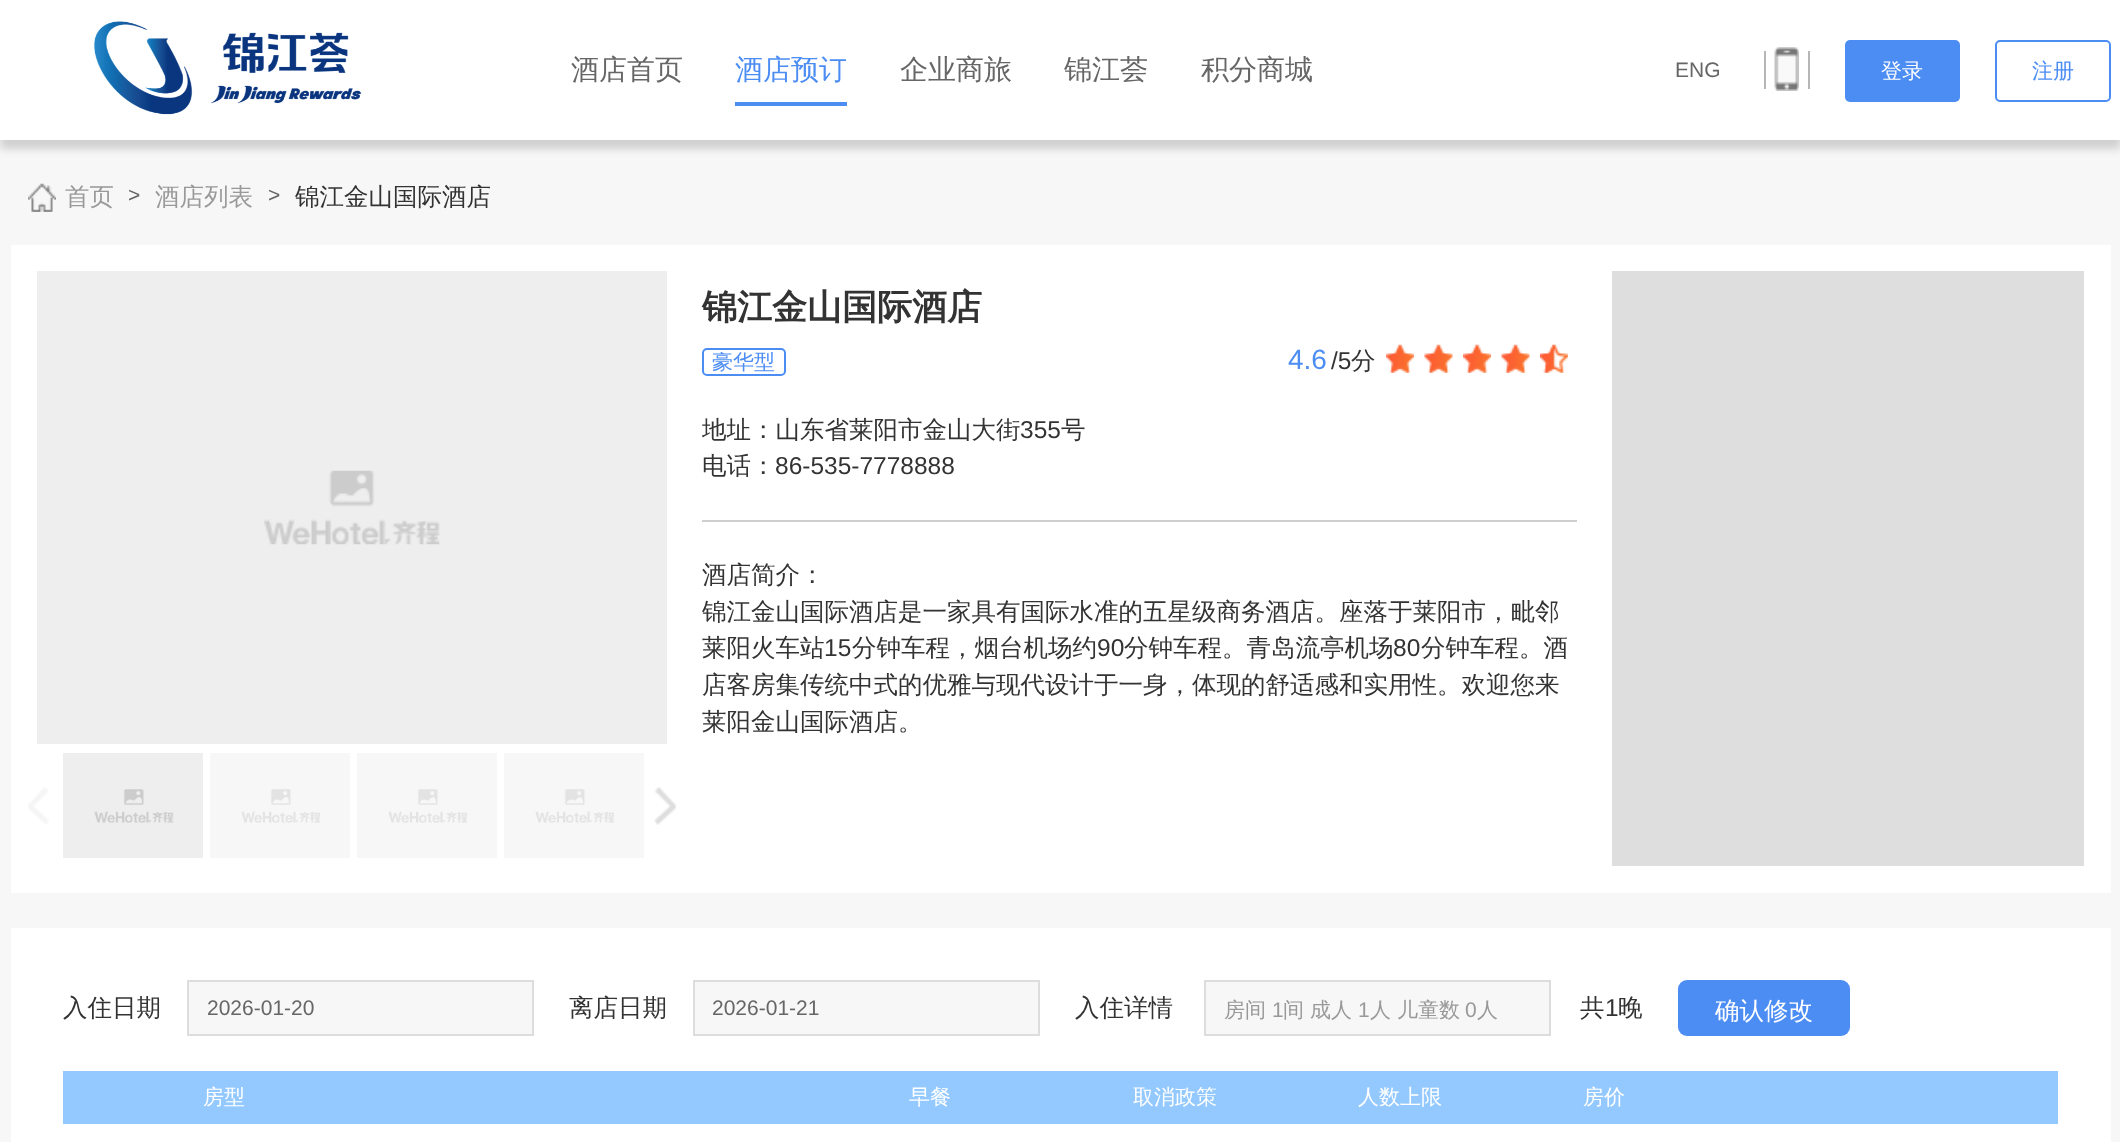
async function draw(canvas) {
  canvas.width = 2120
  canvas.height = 1142
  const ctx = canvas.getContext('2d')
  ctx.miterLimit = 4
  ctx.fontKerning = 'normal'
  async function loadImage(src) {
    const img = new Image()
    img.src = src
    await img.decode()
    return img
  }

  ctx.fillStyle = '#f7f7f7'
  ctx.fillRect(0, 0, 2120, 1142)
  ctx.fillStyle = '#33333333'
  ctx.filter = 'blur(4.5px)'
  ctx.beginPath()
  ctx.rect(0, 9, 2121, 140)
  ctx.fill()
  ctx.filter = 'none'
  ctx.fillStyle = '#fff'
  ctx.fillRect(0, 0, 2120, 140)
  ctx.drawImage(await loadImage('image0.png'), 93, 21, 269, 94)
  ctx.font = '500 28px WenQuanYi Zen Hei'
  ctx.fillStyle = '#666'
  ctx.fillText('酒店首页', 571, 79)
  ctx.fillStyle = '#4c8df4'
  ctx.fillText('酒店预订', 735, 79)
  ctx.fillRect(735, 102, 112, 4)
  ctx.fillStyle = '#666'
  ctx.fillText('企业商旅', 900, 79)
  ctx.fillText('锦江荟', 1064, 79)
  ctx.fillText('积分商城', 1201, 79)
  ctx.font = '21px Liberation Sans'
  ctx.fillText('ENG', 1675, 77)
  ctx.fillStyle = '#b6b6b6'
  ctx.fillRect(1764, 51, 2, 38)
  ctx.drawImage(await loadImage('image1.png'), 1774, 47, 25, 44)
  ctx.fillRect(1808, 51, 2, 38)
  ctx.fillStyle = '#4c8df4'
  ctx.beginPath()
  ctx.roundRect(1845, 40, 115, 62, 5)
  ctx.fill()
  ctx.font = '500 21px WenQuanYi Zen Hei'
  ctx.fillStyle = '#fff'
  ctx.fillText('登录', 1881, 78)
  ctx.beginPath()
  ctx.roundRect(1996, 41, 114, 60, 4)
  ctx.strokeStyle = '#4c8df4'
  ctx.lineWidth = 2
  ctx.stroke()
  ctx.fillStyle = '#4c8df4'
  ctx.fillText('注册', 2032, 78)
  ctx.drawImage(await loadImage('image2.png'), 28, 183, 28, 29)
  ctx.font = '500 24.5px WenQuanYi Zen Hei'
  ctx.fillStyle = '#999'
  ctx.fillText('首页', 65, 205)
  ctx.font = '21px Liberation Sans'
  ctx.fillStyle = '#666'
  ctx.fillText('>', 128, 202)
  ctx.font = '500 24.5px WenQuanYi Zen Hei'
  ctx.fillStyle = '#999'
  ctx.fillText('酒店列表', 155, 205)
  ctx.font = '21px Liberation Sans'
  ctx.fillStyle = '#666'
  ctx.fillText('>', 268, 202)
  ctx.font = '500 24.5px WenQuanYi Zen Hei'
  ctx.fillStyle = '#333'
  ctx.fillText('锦江金山国际酒店', 295, 205)
  ctx.fillStyle = '#fff'
  ctx.fillRect(11, 245, 2100, 648)
  ctx.fillStyle = '#eee'
  ctx.fillRect(37, 271, 630, 473)
  ctx.drawImage(await loadImage('image3.png'), 264, 470, 176, 75)
  ctx.drawImage(await loadImage('image4.png'), 28, 787, 21, 37)
  ctx.fillRect(63, 753, 140, 105)
  ctx.drawImage(await loadImage('image5.png'), 94, 789, 80, 34)
  ctx.fillStyle = '#f7f7f7'
  ctx.fillRect(210, 753, 140, 105)
  ctx.drawImage(await loadImage('image6.png'), 241, 789, 79, 34)
  ctx.fillRect(357, 753, 140, 105)
  ctx.drawImage(await loadImage('image7.png'), 388, 789, 79, 34)
  ctx.fillRect(504, 753, 140, 105)
  ctx.drawImage(await loadImage('image6.png'), 535, 789, 79, 34)
  ctx.drawImage(await loadImage('image8.png'), 654, 787, 23, 38)
  ctx.font = 'bold 35px WenQuanYi Zen Hei'
  ctx.fillStyle = '#333'
  ctx.fillText('锦江金山国际酒店', 702, 319)
  ctx.beginPath()
  ctx.roundRect(703, 349, 82, 26, 4)
  ctx.stroke()
  ctx.font = '500 21px WenQuanYi Zen Hei'
  ctx.fillStyle = '#4c8df4'
  ctx.fillText('豪华型', 712, 369)
  ctx.font = '28px Liberation Sans'
  ctx.fillText('4.6', 1288, 369)
  ctx.font = '24.5px Liberation Sans'
  ctx.fillStyle = '#333'
  ctx.fillText('/5', 1331, 369)
  ctx.font = '500 24.5px WenQuanYi Zen Hei'
  ctx.fillText('分', 1351, 369)
  ctx.drawImage(await loadImage('image9.png'), 1386, 344, 28, 29)
  ctx.drawImage(await loadImage('image10.png'), 1424, 344, 29, 29)
  ctx.drawImage(await loadImage('image9.png'), 1463, 344, 28, 29)
  ctx.drawImage(await loadImage('image10.png'), 1501, 344, 29, 29)
  ctx.drawImage(await loadImage('image11.png'), 1540, 344, 28, 29)
  ctx.fillText('地址：山东省莱阳市金山大街', 702, 438)
  ctx.font = '24.5px Liberation Sans'
  ctx.fillText('355', 1020, 438)
  ctx.font = '500 24.5px WenQuanYi Zen Hei'
  ctx.fillText('号', 1061, 438)
  ctx.fillText('电话：', 702, 474)
  ctx.font = '24.5px Liberation Sans'
  ctx.fillText('86-535-7778888', 775, 474)
  ctx.fillStyle = '#cfcfcf'
  ctx.fillRect(702, 520, 875, 2)
  ctx.font = '500 24.5px WenQuanYi Zen Hei'
  ctx.fillStyle = '#333'
  ctx.fillText('酒店简介：', 702, 583)
  ctx.fillText('锦江金山国际酒店是一家具有国际水准的五星级商务酒店。座落于莱阳市，毗邻', 702, 620)
  ctx.fillText('莱阳火车站', 702, 656)
  ctx.font = '24.5px Liberation Sans'
  ctx.fillText('15', 824, 656)
  ctx.font = '500 24.5px WenQuanYi Zen Hei'
  ctx.fillText('分钟车程，烟台机场约', 852, 656)
  ctx.font = '24.5px Liberation Sans'
  ctx.fillText('90', 1097, 656)
  ctx.font = '500 24.5px WenQuanYi Zen Hei'
  ctx.fillText('分钟车程。青岛流亭机场', 1124, 656)
  ctx.font = '24.5px Liberation Sans'
  ctx.fillText('80', 1393, 656)
  ctx.font = '500 24.5px WenQuanYi Zen Hei'
  ctx.fillText('分钟车程。酒', 1421, 656)
  ctx.fillText('店客房集传统中式的优雅与现代设计于一身，体现的舒适感和实用性。欢迎您来', 702, 693)
  ctx.fillText('莱阳金山国际酒店。', 702, 730)
  ctx.fillStyle = '#dedede'
  ctx.fillRect(1612, 271, 472, 595)
  ctx.fillStyle = '#fff'
  ctx.fillRect(11, 928, 2100, 214)
  ctx.fillStyle = '#333'
  ctx.fillText('入住日期', 63, 1016)
  ctx.fillStyle = '#f7f7f7'
  ctx.beginPath()
  ctx.rect(188, 981, 345, 54)
  ctx.fill()
  ctx.strokeStyle = '#ddd'
  ctx.stroke()
  ctx.font = '21px Liberation Sans'
  ctx.fillStyle = '#666'
  ctx.fillText('2026-01-20', 207, 1015)
  ctx.font = '500 24.5px WenQuanYi Zen Hei'
  ctx.fillStyle = '#333'
  ctx.fillText('离店日期', 569, 1016)
  ctx.fillStyle = '#f7f7f7'
  ctx.beginPath()
  ctx.rect(694, 981, 345, 54)
  ctx.fill()
  ctx.stroke()
  ctx.font = '21px Liberation Sans'
  ctx.fillStyle = '#666'
  ctx.fillText('2026-01-21', 712, 1015)
  ctx.font = '500 24.5px WenQuanYi Zen Hei'
  ctx.fillStyle = '#333'
  ctx.fillText('入住详情', 1075, 1016)
  ctx.fillStyle = '#f7f7f7'
  ctx.beginPath()
  ctx.rect(1205, 981, 345, 54)
  ctx.fill()
  ctx.stroke()
  ctx.font = '500 21px WenQuanYi Zen Hei'
  ctx.fillStyle = '#999'
  ctx.fillText('房间', 1224, 1017)
  ctx.font = '21px Liberation Sans'
  ctx.fillText('1', 1272, 1017)
  ctx.font = '500 21px WenQuanYi Zen Hei'
  ctx.fillText('间', 1283, 1017)
  ctx.fillText('成人', 1310, 1017)
  ctx.font = '21px Liberation Sans'
  ctx.fillText('1', 1358, 1017)
  ctx.font = '500 21px WenQuanYi Zen Hei'
  ctx.fillText('人', 1370, 1017)
  ctx.fillText('儿童数', 1397, 1017)
  ctx.font = '21px Liberation Sans'
  ctx.fillText('0', 1465, 1017)
  ctx.font = '500 21px WenQuanYi Zen Hei'
  ctx.fillText('人', 1477, 1017)
  ctx.font = '500 24.5px WenQuanYi Zen Hei'
  ctx.fillStyle = '#333'
  ctx.fillText('共', 1580, 1016)
  ctx.font = '24.5px Liberation Sans'
  ctx.fillText('1', 1605, 1016)
  ctx.font = '500 24.5px WenQuanYi Zen Hei'
  ctx.fillText('晚', 1618, 1016)
  ctx.fillStyle = '#4c8df4'
  ctx.beginPath()
  ctx.roundRect(1678, 980, 172, 56, 9)
  ctx.fill()
  ctx.fillStyle = '#fff'
  ctx.fillText('确认修改', 1715, 1019)
  ctx.fillStyle = '#94c9ff'
  ctx.fillRect(63, 1071, 1995, 53)
  ctx.font = '500 21px WenQuanYi Zen Hei'
  ctx.fillStyle = '#fff'
  ctx.fillText('房型', 203, 1104)
  ctx.fillText('早餐', 909, 1104)
  ctx.fillText('取消政策', 1133, 1104)
  ctx.fillText('人数上限', 1358, 1104)
  ctx.fillText('房价', 1583, 1104)
}

draw(document.querySelector('canvas'))
